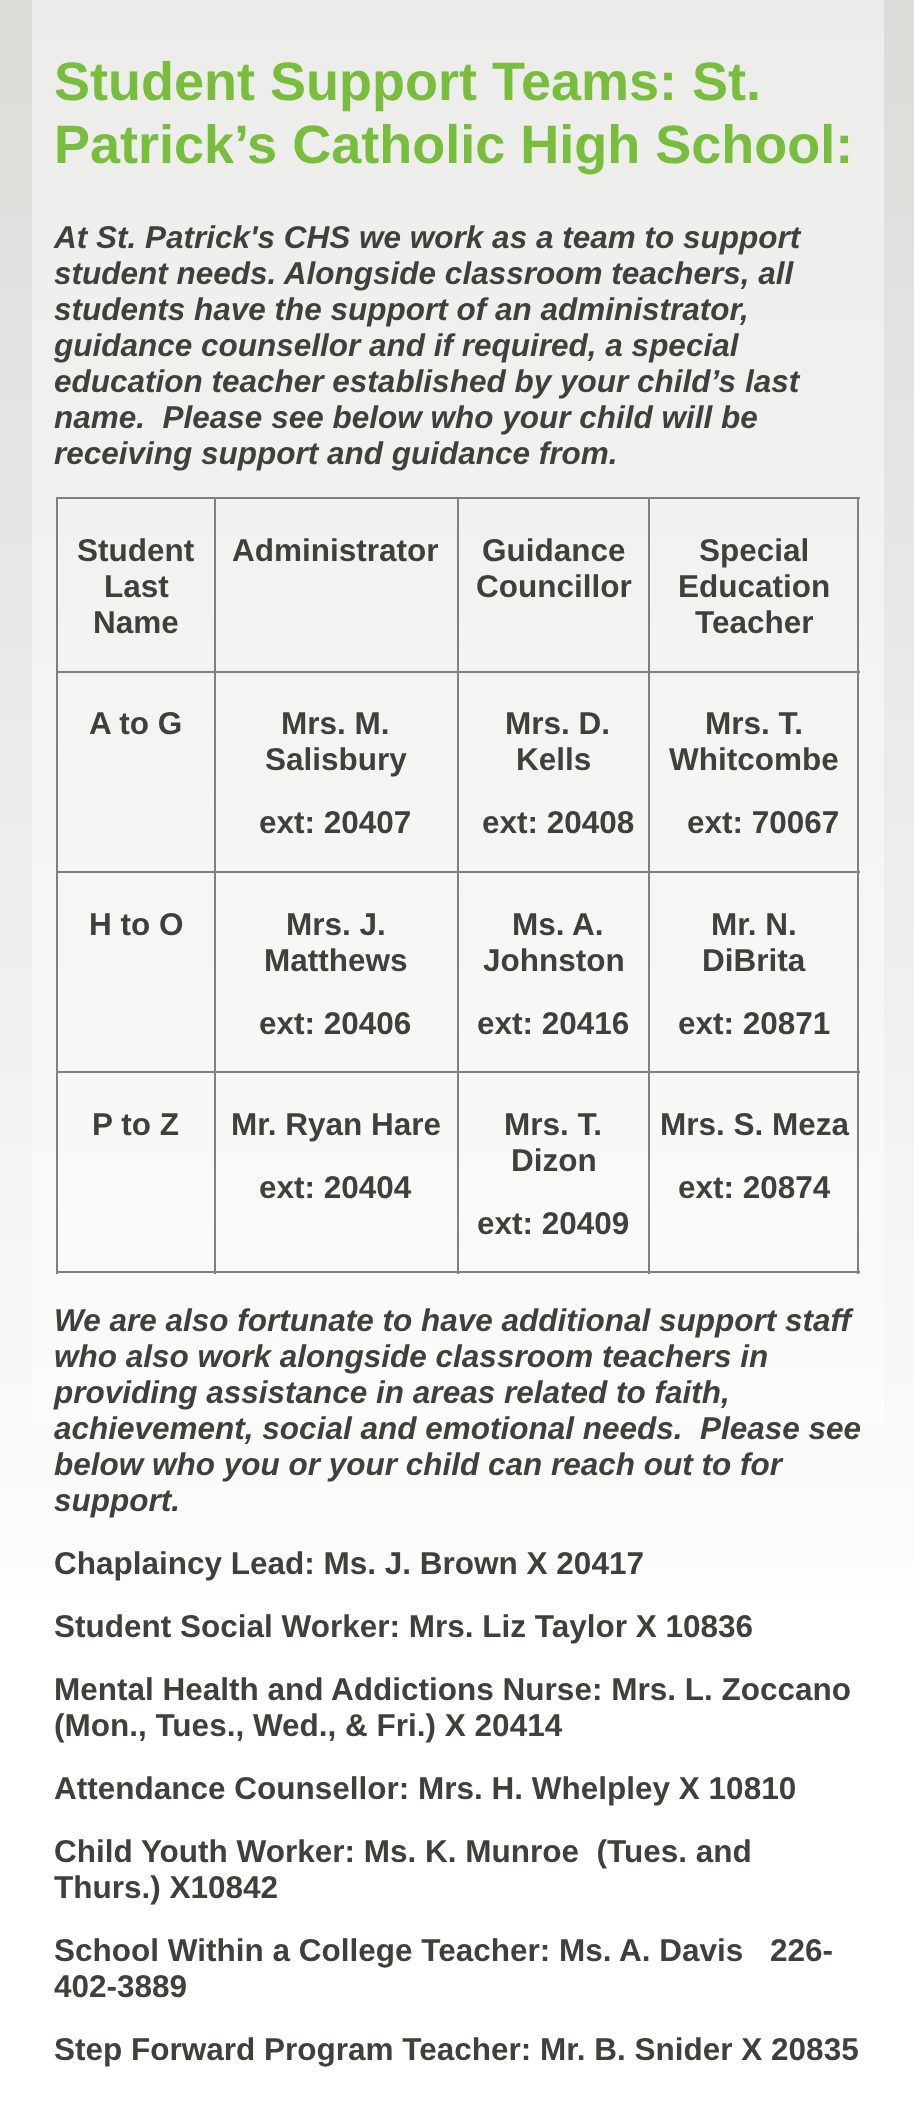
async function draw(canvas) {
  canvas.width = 914
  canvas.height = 2111
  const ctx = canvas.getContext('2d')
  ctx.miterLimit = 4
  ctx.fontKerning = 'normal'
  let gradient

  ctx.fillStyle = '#fff'
  ctx.fillRect(0, 0, 914, 2111)
  gradient = ctx.createLinearGradient(458, -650, 458, 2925)
  gradient.addColorStop(0, '#cdcfc9')
  gradient.addColorStop(0.66, '#fff')
  ctx.fillStyle = gradient
  ctx.fillRect(0, 0, 914, 1600)
  gradient = ctx.createLinearGradient(458, -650, 458, 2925)
  gradient.addColorStop(0, '#e5e6e3')
  gradient.addColorStop(0.66, '#fefefe')
  ctx.fillStyle = gradient
  ctx.fillRect(32, 0, 852, 1426)
  ctx.font = 'bold 54px Liberation Sans'
  ctx.fillStyle = '#79bd3d'
  ctx.fillText('Student Support Teams: St.', 54, 100)
  ctx.fillText('Patrick’s Catholic High School:', 54, 163)
  ctx.font = 'italic bold 31.5px Liberation Sans'
  ctx.fillStyle = '#3e403a'
  ctx.fillText('At St. Patrick\'s CHS we work as a team to support', 54, 248)
  ctx.fillText('student needs. Alongside classroom teachers, all', 54, 284)
  ctx.fillText('students have the support of an administrator,', 54, 320)
  ctx.fillText('guidance counsellor and if required, a special', 54, 356)
  ctx.fillText('education teacher established by your child’s last', 54, 392)
  ctx.fillText('name.  Please see below who your child will be', 54, 428)
  ctx.fillText('receiving support and guidance from.', 54, 464)
  ctx.fillStyle = '#808080'
  ctx.fillRect(56, 497, 804, 2)
  ctx.fillRect(857, 497, 2, 777)
  ctx.fillRect(56, 1271, 804, 2)
  ctx.fillRect(56, 497, 2, 777)
  ctx.font = 'bold 31.5px Liberation Sans'
  ctx.fillStyle = '#3e403a'
  ctx.fillText('Student', 77, 561)
  ctx.fillText('Last', 104, 597)
  ctx.fillText('Name', 93, 633)
  ctx.fillStyle = '#808080'
  ctx.fillRect(648, 671, 212, 2)
  ctx.fillRect(648, 871, 212, 2)
  ctx.fillRect(648, 1071, 212, 2)
  ctx.fillRect(648, 1071, 2, 203)
  ctx.fillRect(457, 1071, 193, 2)
  ctx.fillRect(648, 871, 2, 202)
  ctx.fillRect(457, 871, 193, 2)
  ctx.fillRect(648, 671, 2, 202)
  ctx.fillRect(457, 671, 193, 2)
  ctx.fillRect(457, 1071, 2, 203)
  ctx.fillRect(214, 1071, 245, 2)
  ctx.fillRect(457, 871, 2, 202)
  ctx.fillRect(214, 871, 245, 2)
  ctx.fillRect(457, 671, 2, 202)
  ctx.fillRect(214, 671, 245, 2)
  ctx.fillRect(214, 1071, 2, 203)
  ctx.fillRect(56, 1071, 160, 2)
  ctx.fillRect(214, 871, 2, 202)
  ctx.fillRect(56, 871, 160, 2)
  ctx.fillRect(214, 671, 2, 202)
  ctx.fillRect(56, 671, 160, 2)
  ctx.fillRect(214, 497, 2, 176)
  ctx.fillStyle = '#3e403a'
  ctx.fillText('Administrator', 232, 561)
  ctx.fillStyle = '#808080'
  ctx.fillRect(457, 497, 2, 176)
  ctx.fillStyle = '#3e403a'
  ctx.fillText('Guidance', 482, 561)
  ctx.fillText('Councillor', 476, 597)
  ctx.fillStyle = '#808080'
  ctx.fillRect(648, 497, 2, 176)
  ctx.fillStyle = '#3e403a'
  ctx.fillText('Special', 699, 561)
  ctx.fillText('Education', 678, 597)
  ctx.fillText('Teacher', 695, 633)
  ctx.fillText('A to G', 89, 734)
  ctx.fillText('Mrs. M.', 281, 734)
  ctx.fillText('Salisbury', 265, 770)
  ctx.fillText('ext: 20407', 259, 833)
  ctx.fillText('Mrs. D.', 505, 734)
  ctx.fillText('Kells', 516, 770)
  ctx.fillText('ext: 20408', 482, 833)
  ctx.fillText('Mrs. T.', 705, 734)
  ctx.fillText('Whitcombe', 669, 770)
  ctx.fillText('ext: 70067', 687, 833)
  ctx.fillText('H to O', 89, 935)
  ctx.fillText('Mrs. J.', 286, 935)
  ctx.fillText('Matthews', 264, 971)
  ctx.fillText('ext: 20406', 259, 1034)
  ctx.fillText('Ms. A.', 512, 935)
  ctx.fillText('Johnston', 483, 971)
  ctx.fillText('ext: 20416', 477, 1034)
  ctx.fillText('Mr. N.', 711, 935)
  ctx.fillText('DiBrita', 702, 971)
  ctx.fillText('ext: 20871', 678, 1034)
  ctx.fillText('P to Z', 92, 1135)
  ctx.fillText('Mr. Ryan Hare', 231, 1135)
  ctx.fillText('ext: 20404', 259, 1198)
  ctx.fillText('Mrs. T.', 504, 1135)
  ctx.fillText('Dizon', 511, 1171)
  ctx.fillText('ext: 20409', 477, 1234)
  ctx.fillText('Mrs. S. Meza', 660, 1135)
  ctx.fillText('ext: 20874', 678, 1198)
  ctx.font = 'italic bold 31.5px Liberation Sans'
  ctx.fillText('We are also fortunate to have additional support staff', 54, 1331)
  ctx.fillText('who also work alongside classroom teachers in', 54, 1367)
  ctx.fillText('providing assistance in areas related to faith,', 54, 1403)
  ctx.fillText('achievement, social and emotional needs.  Please see', 54, 1439)
  ctx.fillText('below who you or your child can reach out to for', 54, 1475)
  ctx.fillText('support.', 54, 1511)
  ctx.font = 'bold 31.5px Liberation Sans'
  ctx.fillText('Chaplaincy Lead: Ms. J. Brown X 20417', 54, 1574)
  ctx.fillText('Student Social Worker: Mrs. Liz Taylor X 10836', 54, 1637)
  ctx.fillText('Mental Health and Addictions Nurse: Mrs. L. Zoccano', 54, 1700)
  ctx.fillText('(Mon., Tues., Wed., & Fri.) X 20414', 54, 1736)
  ctx.fillText('Attendance Counsellor: Mrs. H. Whelpley X 10810', 54, 1799)
  ctx.fillText('Child Youth Worker: Ms. K. Munroe  (Tues. and', 54, 1862)
  ctx.fillText('Thurs.) X10842', 54, 1898)
  ctx.fillText('School Within a College Teacher: Ms. A. Davis', 54, 1961)
  ctx.fillText('226-', 770, 1961)
  ctx.fillText('402-3889', 54, 1997)
  ctx.fillText('Step Forward Program Teacher: Mr. B. Snider X 20835', 54, 2060)
}

draw(document.querySelector('canvas'))
